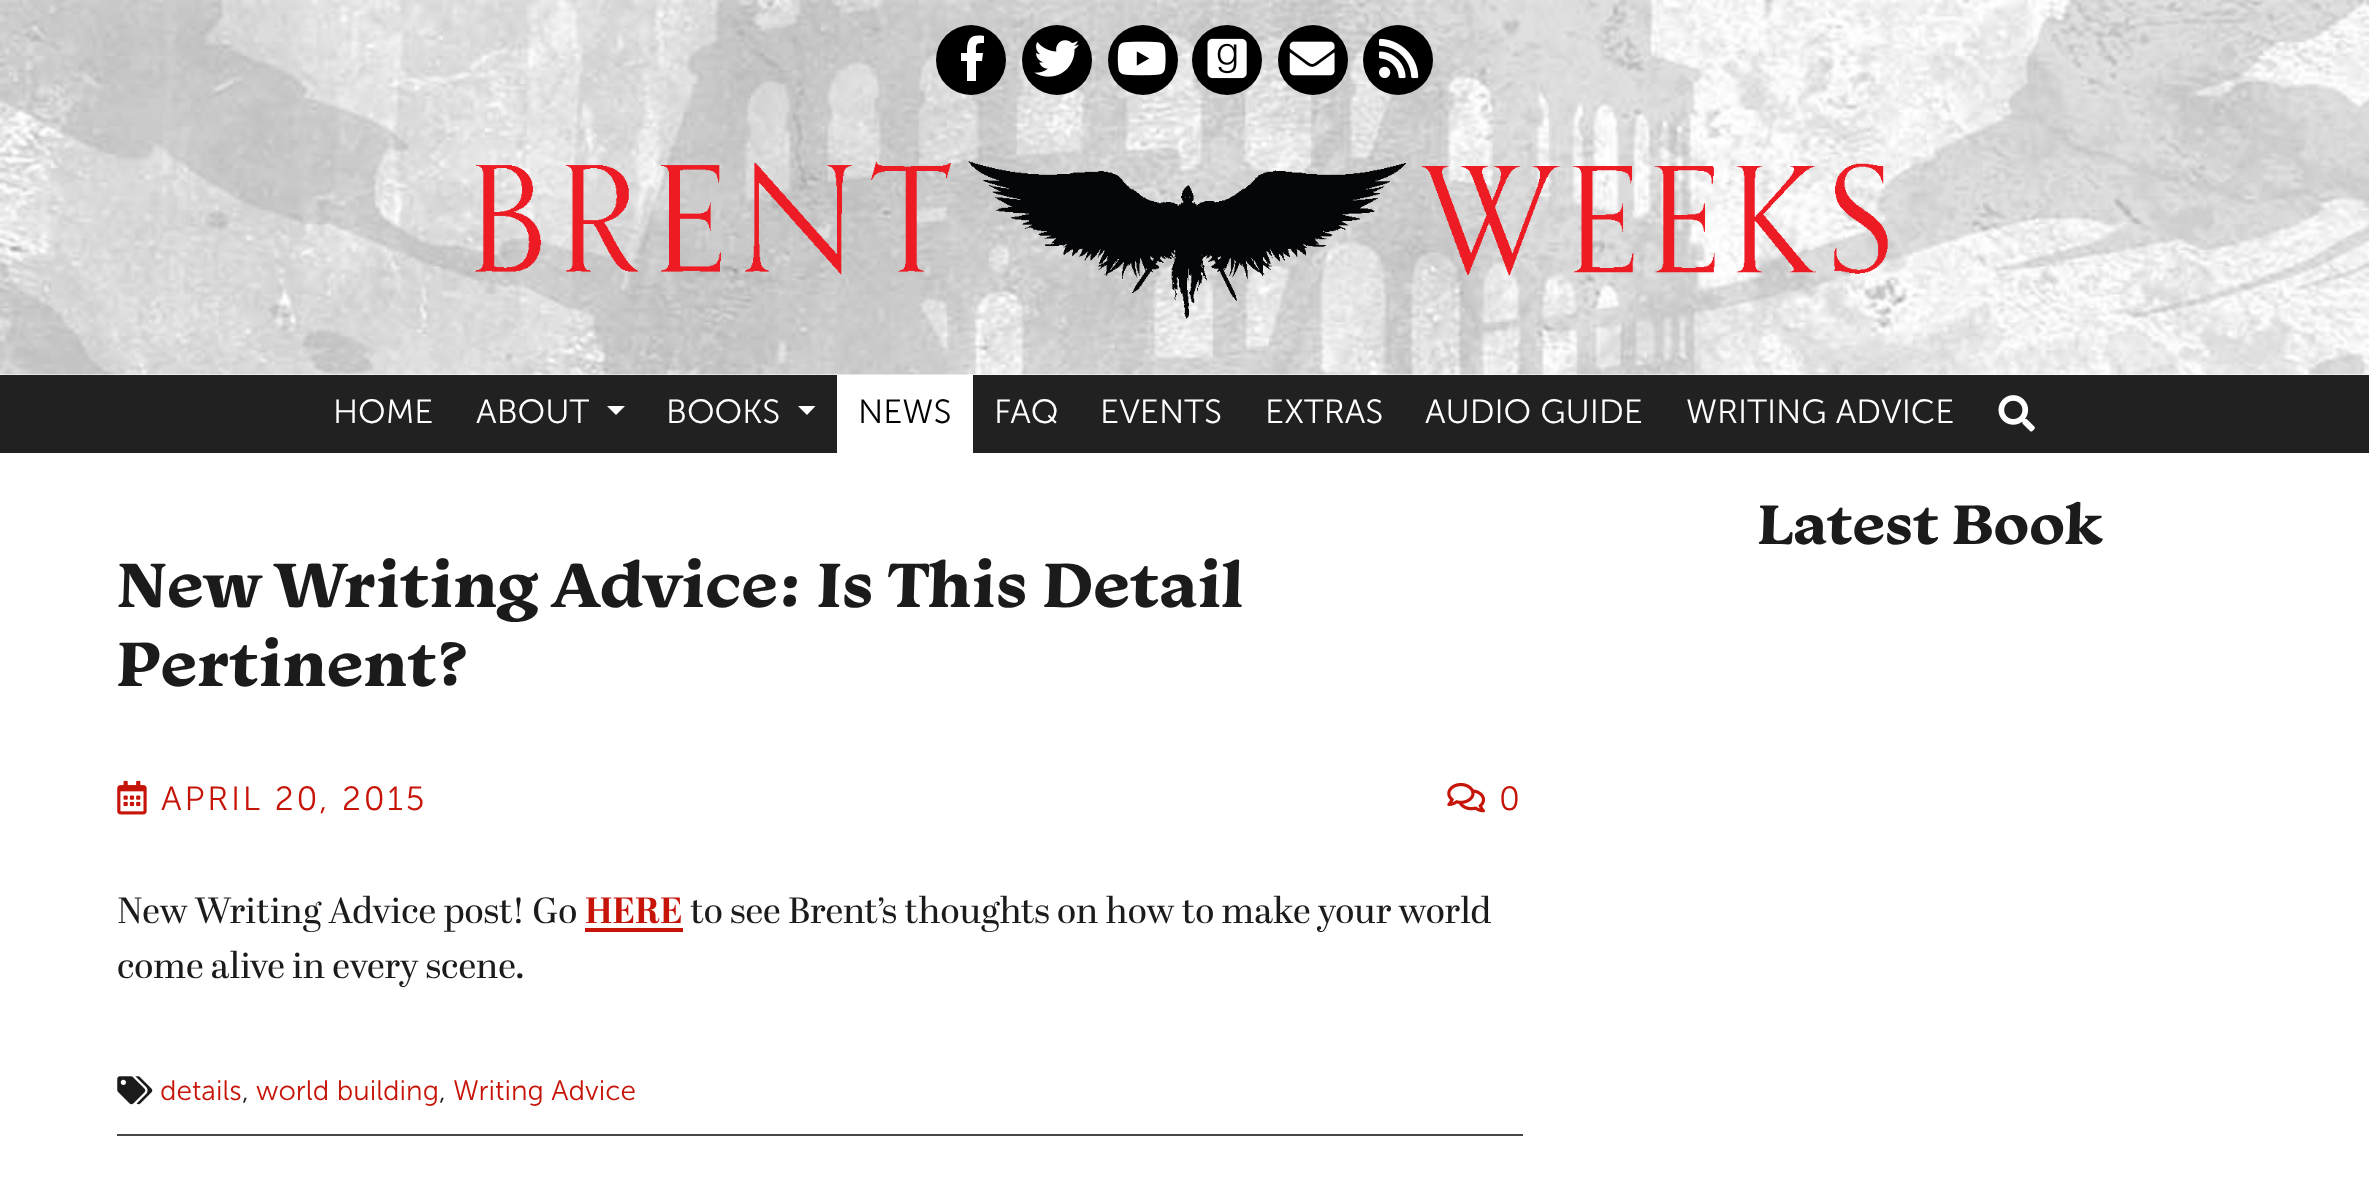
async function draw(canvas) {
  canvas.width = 2369
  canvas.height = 1201
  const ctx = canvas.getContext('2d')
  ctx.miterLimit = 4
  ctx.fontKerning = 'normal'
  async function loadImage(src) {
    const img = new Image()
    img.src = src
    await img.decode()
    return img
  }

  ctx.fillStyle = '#fff'
  ctx.fillRect(0, 0, 2369, 1201)
  ctx.drawImage(await loadImage('image0.png'), 0, 0, 2369, 375)
  ctx.fillStyle = '#000'
  ctx.beginPath()
  ctx.arc(971, 60, 35, 0, 2 * Math.PI)
  ctx.fill()
  ctx.fillStyle = '#fff'
  ctx.beginPath()
  ctx.moveTo(967, 81)
  ctx.lineTo(967, 61)
  ctx.lineTo(961, 61)
  ctx.lineTo(961, 53)
  ctx.lineTo(967, 53)
  ctx.bezierCurveTo(967, 40, 969, 34, 984, 36)
  ctx.lineTo(984, 43)
  ctx.bezierCurveTo(975, 43, 976, 44, 976, 53)
  ctx.lineTo(983, 53)
  ctx.lineTo(982, 61)
  ctx.lineTo(976, 61)
  ctx.lineTo(976, 81)
  ctx.closePath()
  ctx.fill()
  ctx.fillStyle = '#000'
  ctx.beginPath()
  ctx.arc(1057, 60, 35, 0, 2 * Math.PI)
  ctx.fill()
  ctx.drawImage(await loadImage('image1.png'), 1034, 40, 45, 37)
  ctx.beginPath()
  ctx.arc(1143, 60, 35, 0, 2 * Math.PI)
  ctx.fill()
  ctx.drawImage(await loadImage('image2.png'), 1117, 41, 49, 35)
  ctx.beginPath()
  ctx.arc(1227, 60, 35, 0, 2 * Math.PI)
  ctx.fill()
  ctx.drawImage(await loadImage('image3.png'), 1207, 38, 40, 41)
  ctx.beginPath()
  ctx.arc(1313, 60, 35, 0, 2 * Math.PI)
  ctx.fill()
  ctx.drawImage(await loadImage('image4.png'), 1289, 41, 46, 35)
  ctx.beginPath()
  ctx.arc(1398, 60, 35, 0, 2 * Math.PI)
  ctx.fill()
  ctx.drawImage(await loadImage('image5.png'), 1379, 38, 40, 41)
  ctx.drawImage(await loadImage('image6.png'), 475, 161, 1413, 158)
  ctx.fillStyle = '#212121'
  ctx.fillRect(0, 375, 2369, 78)
  ctx.font = '300 33.5px "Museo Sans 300"'
  ctx.fillStyle = '#fff'
  ctx.fillText('HOME', 333, 423)
  ctx.fillText('ABOUT', 476, 423)
  ctx.beginPath()
  ctx.moveTo(607, 406)
  ctx.lineTo(625, 406)
  ctx.lineTo(616, 415)
  ctx.closePath()
  ctx.fill()
  ctx.fillText('BOOKS', 666, 423)
  ctx.beginPath()
  ctx.moveTo(798, 406)
  ctx.lineTo(815.5, 406)
  ctx.lineTo(807, 415)
  ctx.closePath()
  ctx.fill()
  ctx.fillRect(837, 375, 136, 78)
  ctx.fillStyle = '#000'
  ctx.fillText('NEWS', 858, 423)
  ctx.fillStyle = '#fff'
  ctx.fillText('FAQ', 994, 423)
  ctx.fillText('EVENTS', 1100, 423)
  ctx.fillText('EXTRAS', 1265, 423)
  ctx.fillText('AUDIO GUIDE', 1425, 423)
  ctx.fillText('WRITING ADVICE', 1686, 423)
  ctx.drawImage(await loadImage('image7.png'), 1998, 395, 37, 37)
  ctx.font = 'bold 58.25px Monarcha'
  ctx.fillStyle = '#1b1b1b'
  ctx.fillText('Latest Book', 1758, 544)
  ctx.fillStyle = '#474747'
  ctx.fillRect(117, 1134, 1406, 2)
  ctx.font = 'bold 65.5px Monarcha'
  ctx.fillStyle = '#1b1b1b'
  ctx.fillText('New Writing Advice: Is This Detail', 117, 607)
  ctx.fillText('Pertinent?', 117, 686)
  ctx.drawImage(await loadImage('image8.png'), 117, 780, 30, 35)
  ctx.letterSpacing = '2.75px'
  ctx.font = '300 33.5px "Museo Sans 300"'
  ctx.fillStyle = '#c61409'
  ctx.fillText('APRIL 20, 2015', 161, 810)
  ctx.drawImage(await loadImage('image9.png'), 1447, 782, 39, 31)
  ctx.fillText('0', 1499, 810)
  ctx.letterSpacing = '0px'
  ctx.font = '36.4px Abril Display'
  ctx.fillStyle = '#1b1b1b'
  ctx.fillText('New Writing Advice post! Go', 117, 923)
  ctx.font = 'bold 36.4px Abril Display'
  ctx.fillStyle = '#c61409'
  ctx.fillText('HERE', 585, 923)
  ctx.fillRect(585, 928, 98, 4)
  ctx.font = '36.4px Abril Display'
  ctx.fillStyle = '#1b1b1b'
  ctx.fillText('to see Brent’s thoughts on how to make your world', 690, 923)
  ctx.fillText('come alive in every scene.', 117, 978)
  ctx.drawImage(await loadImage('image10.png'), 117, 1076, 36, 29)
  ctx.font = '300 28px "Museo Sans 300"'
  ctx.fillStyle = '#c61409'
  ctx.fillText('details', 160, 1100)
  ctx.fillStyle = '#1b1b1b'
  ctx.fillText(',', 242, 1100)
  ctx.fillStyle = '#c61409'
  ctx.fillText('world building', 256, 1100)
  ctx.fillStyle = '#1b1b1b'
  ctx.fillText(',', 439, 1100)
  ctx.fillStyle = '#c61409'
  ctx.fillText('Writing Advice', 453, 1100)
}

draw(document.querySelector('canvas'))
